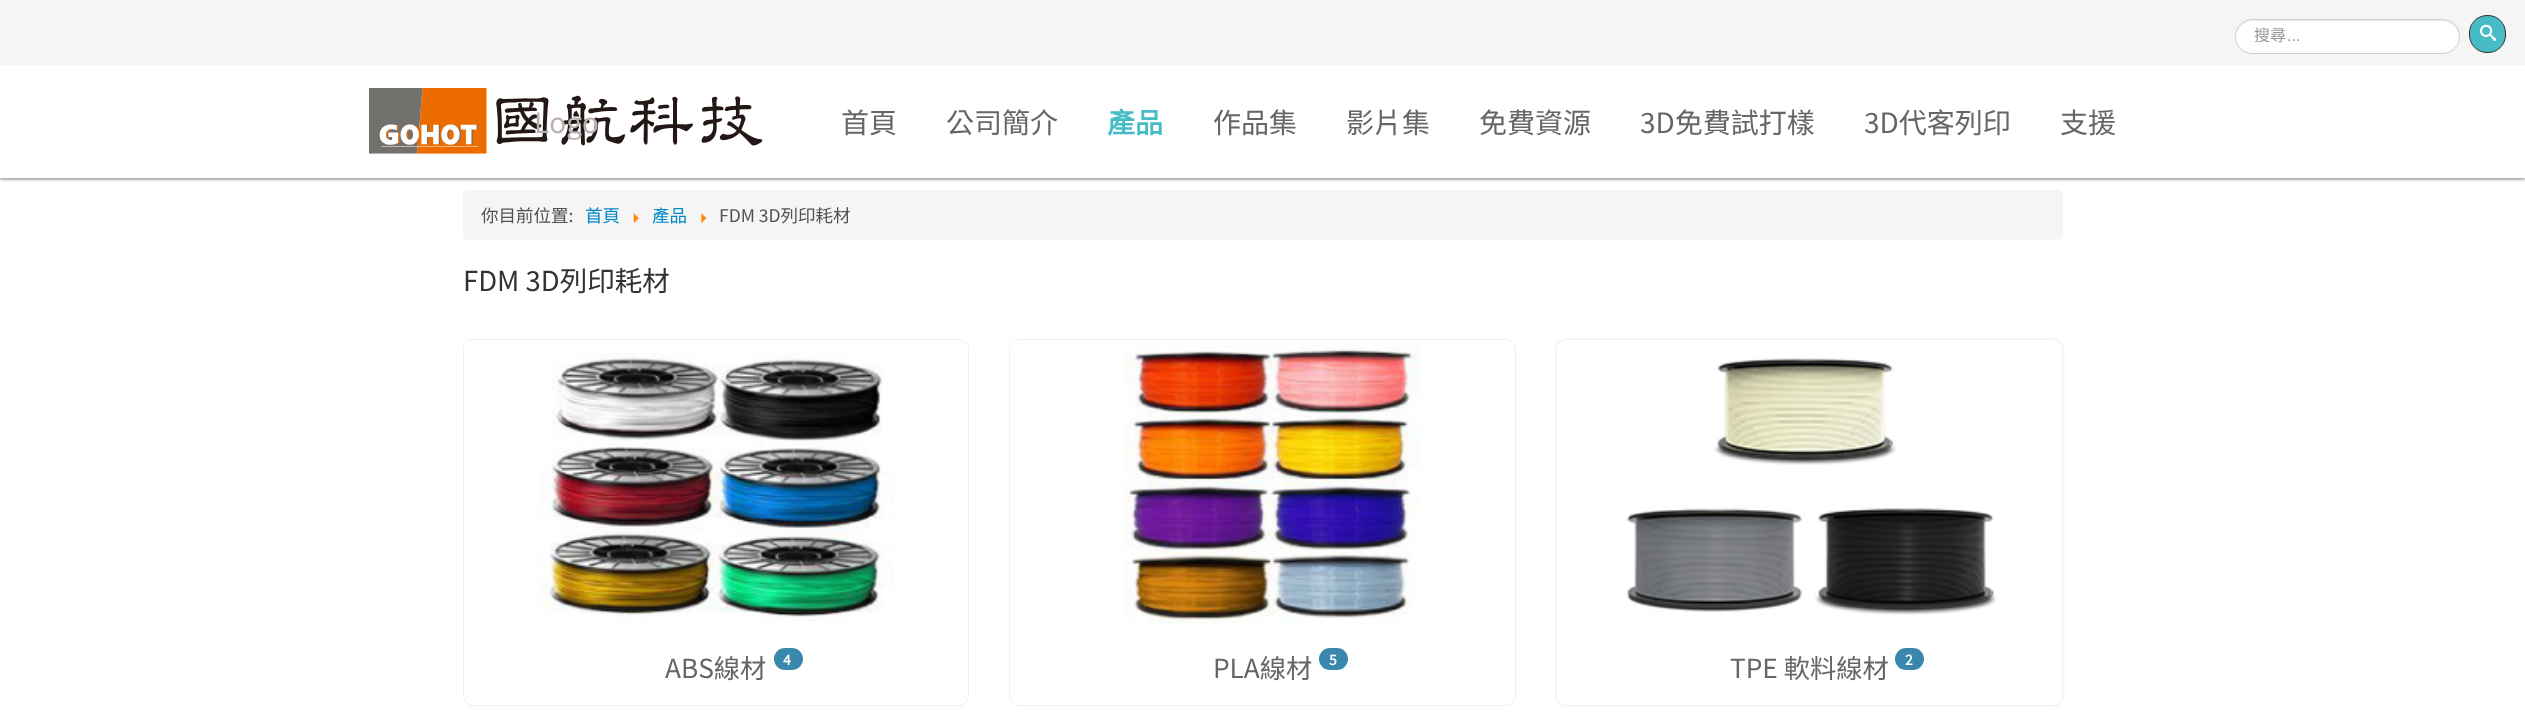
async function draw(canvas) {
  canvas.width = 2525
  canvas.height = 727
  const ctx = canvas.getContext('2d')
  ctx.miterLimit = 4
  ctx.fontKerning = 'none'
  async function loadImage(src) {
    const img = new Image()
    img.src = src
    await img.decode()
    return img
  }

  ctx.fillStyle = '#fff'
  ctx.fillRect(0, 0, 2525, 727)
  ctx.fillStyle = '#00000054'
  ctx.filter = 'blur(1px)'
  ctx.beginPath()
  ctx.rect(0, 3, 2525, 177)
  ctx.fill()
  ctx.filter = 'none'
  ctx.fillStyle = '#f5f5f5'
  ctx.fillRect(0, 0, 2525, 65)
  ctx.fillStyle = '#fff'
  ctx.beginPath()
  ctx.roundRect(2235, 19, 225, 35, 17.5)
  ctx.fill()
  ctx.fillStyle = '#ececec'
  ctx.beginPath()
  ctx.moveTo(2252, 21)
  ctx.lineTo(2442, 21)
  ctx.bezierCurveTo(2451, 21, 2459, 29, 2459, 37)
  ctx.bezierCurveTo(2460, 13, 2423, 20, 2411, 20)
  ctx.lineTo(2284, 20)
  ctx.bezierCurveTo(2272, 20, 2235, 13, 2236, 37)
  ctx.bezierCurveTo(2236, 29, 2244, 21, 2252, 21)
  ctx.closePath()
  ctx.fill()
  ctx.beginPath()
  ctx.roundRect(2235.5, 19.5, 224, 34, 17)
  ctx.strokeStyle = '#ccc'
  ctx.stroke()
  ctx.font = '16px Noto Sans CJK TC'
  ctx.fillStyle = '#999'
  ctx.fillText('搜尋', 2254, 41)
  ctx.font = '16px Liberation Sans'
  ctx.fillText('...', 2287, 41)
  ctx.fillStyle = '#47bcc6'
  ctx.beginPath()
  ctx.roundRect(2469.5, 15.5, 36, 37, 17.5)
  ctx.fill()
  ctx.strokeStyle = '#333'
  ctx.stroke()
  ctx.drawImage(await loadImage('image0.png'), 2480, 24, 17, 17)
  ctx.fillStyle = '#fff'
  ctx.fillRect(0, 65, 2525, 113)
  ctx.drawImage(await loadImage('image1.png'), 369, 88, 394, 66)
  ctx.font = '100 28px Noto Sans TC'
  ctx.fillStyle = '#b6b2b1'
  ctx.fillText('Logo', 534, 133)
  ctx.fillStyle = '#666'
  ctx.fillText('首頁', 841, 133)
  ctx.fillText('公司簡介', 946, 133)
  ctx.font = 'bold 28px Noto Sans TC'
  ctx.fillStyle = '#47bcc6'
  ctx.fillText('產品', 1107, 133)
  ctx.font = '100 28px Noto Sans TC'
  ctx.fillStyle = '#666'
  ctx.fillText('作品集', 1213, 133)
  ctx.fillText('影片集', 1346, 133)
  ctx.fillText('免費資源', 1479, 133)
  ctx.fillText('3D免費試打樣', 1640, 133)
  ctx.fillText('3D代客列印', 1864, 133)
  ctx.fillText('支援', 2060, 133)
  ctx.fillStyle = '#f5f5f5'
  ctx.beginPath()
  ctx.roundRect(463, 190, 1600, 50, 5)
  ctx.fill()
  ctx.font = '100 17.5px Noto Sans TC'
  ctx.fillStyle = '#515151'
  ctx.fillText('你目前位置:', 481, 222)
  ctx.fillStyle = '#08c'
  ctx.fillText('首頁', 585, 222)
  ctx.drawImage(await loadImage('image2.png'), 633, 213, 6, 10)
  ctx.fillText('產品', 652, 222)
  ctx.drawImage(await loadImage('image3.png'), 701, 213, 6, 10)
  ctx.fillStyle = '#515151'
  ctx.fillText('FDM 3D列印耗材', 719, 222)
  ctx.font = '100 27.5px Noto Sans TC'
  ctx.fillStyle = '#333'
  ctx.fillText('FDM 3D列印耗材', 463, 291)
  ctx.beginPath()
  ctx.roundRect(463.5, 339.5, 505, 366, 9.5)
  ctx.strokeStyle = '#f0f0f0'
  ctx.stroke()
  ctx.drawImage(await loadImage('image4.png'), 464, 342, 430, 280)
  ctx.font = '100 26.25px Noto Sans TC'
  ctx.fillStyle = '#666'
  ctx.fillText('ABS線材', 665, 678)
  ctx.fillStyle = '#3a87ad'
  ctx.beginPath()
  ctx.roundRect(774, 648, 29, 22, 11)
  ctx.fill()
  ctx.font = 'bold 14px Noto Sans TC'
  ctx.fillStyle = '#fff'
  ctx.fillText('4', 783, 665)
  ctx.beginPath()
  ctx.roundRect(1009.5, 339.5, 506, 366, 9.5)
  ctx.stroke()
  ctx.drawImage(await loadImage('image5.png'), 1012, 342, 501, 282)
  ctx.font = '100 26.25px Noto Sans TC'
  ctx.fillStyle = '#666'
  ctx.fillText('PLA線材', 1213, 678)
  ctx.fillStyle = '#3a87ad'
  ctx.beginPath()
  ctx.roundRect(1319, 648, 29, 22, 11)
  ctx.fill()
  ctx.font = 'bold 14px Noto Sans TC'
  ctx.fillStyle = '#fff'
  ctx.fillText('5', 1329, 665)
  ctx.fillStyle = '#0000000d'
  ctx.filter = 'blur(2px)'
  ctx.beginPath()
  ctx.roundRect(1556, 339, 507, 367, 10)
  ctx.fill()
  ctx.filter = 'none'
  ctx.fillStyle = '#fff'
  ctx.beginPath()
  ctx.roundRect(1556.5, 339.5, 506, 366, 9.5)
  ctx.fill()
  ctx.stroke()
  ctx.drawImage(await loadImage('image6.png'), 1626, 358, 370, 257)
  ctx.font = '100 26.25px Noto Sans TC'
  ctx.fillStyle = '#666'
  ctx.fillText('TPE 軟料線材', 1730, 678)
  ctx.fillStyle = '#3a87ad'
  ctx.beginPath()
  ctx.roundRect(1895, 648, 29, 22, 11)
  ctx.fill()
  ctx.font = 'bold 14px Noto Sans TC'
  ctx.fillStyle = '#fff'
  ctx.fillText('2', 1905, 665)
}

draw(document.querySelector('canvas'))
